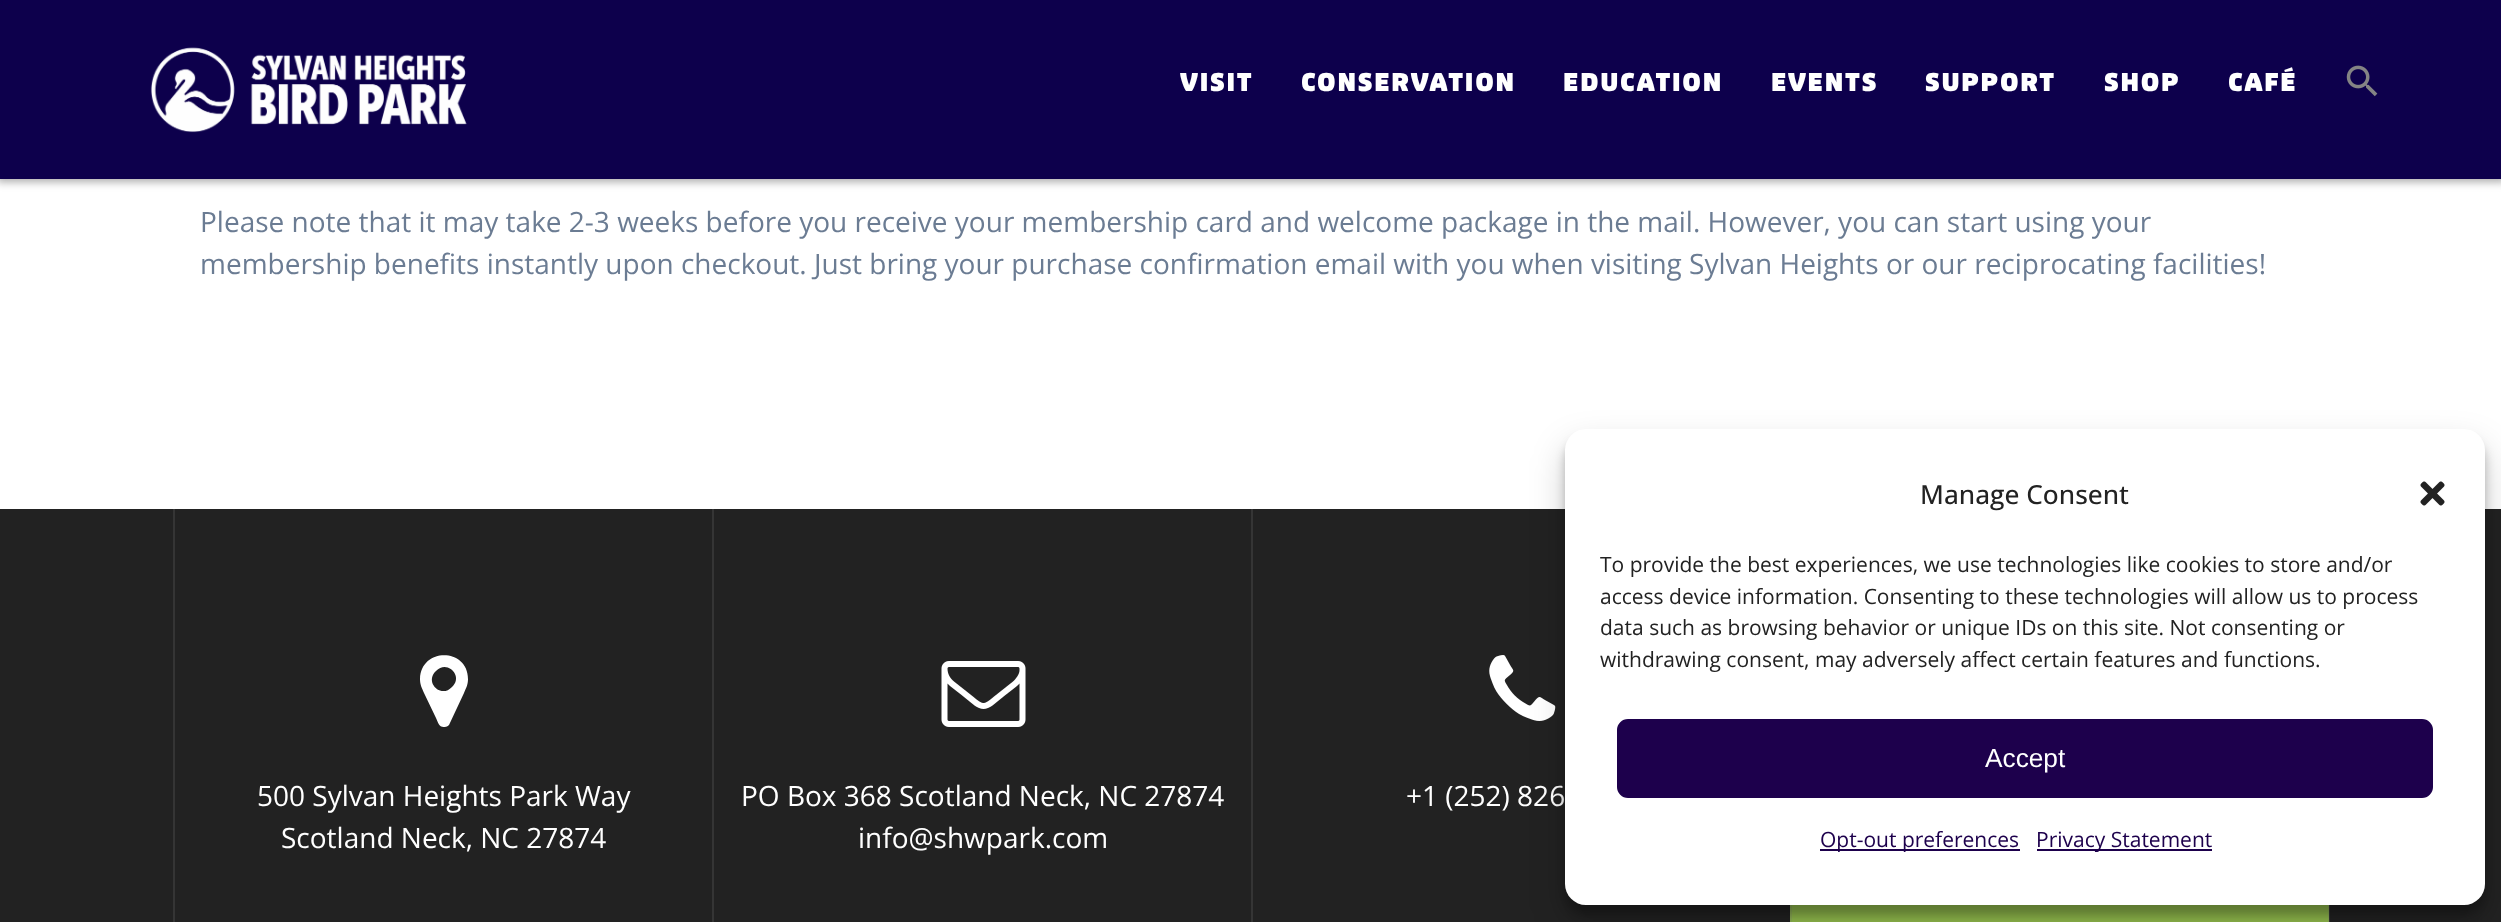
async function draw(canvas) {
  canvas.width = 2501
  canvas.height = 922
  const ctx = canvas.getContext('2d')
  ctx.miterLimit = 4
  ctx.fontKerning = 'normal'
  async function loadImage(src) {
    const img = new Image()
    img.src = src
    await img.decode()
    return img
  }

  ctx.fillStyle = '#fff'
  ctx.fillRect(0, 0, 2501, 922)
  ctx.fillStyle = '#00000054'
  ctx.filter = 'blur(4.5px)'
  ctx.beginPath()
  ctx.rect(-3, -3, 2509, 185)
  ctx.fill()
  ctx.filter = 'none'
  ctx.fillStyle = '#0d004c'
  ctx.fillRect(0, 0, 2501, 179)
  ctx.drawImage(await loadImage('image0.png'), 150, 47, 317, 86)
  ctx.letterSpacing = '1.75px'
  ctx.font = '900 24.5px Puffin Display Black'
  ctx.fillStyle = '#fff'
  ctx.fillText('VISIT', 1180, 91)
  ctx.fillText('CONSERVATION', 1301, 91)
  ctx.fillText('EDUCATION', 1563, 91)
  ctx.fillText('EVENTS', 1771, 91)
  ctx.fillText('SUPPORT', 1925, 91)
  ctx.fillText('SHOP', 2104, 91)
  ctx.fillText('CAFÉ', 2228, 91)
  ctx.drawImage(await loadImage('image1.png'), 2346, 65, 32, 32)
  ctx.letterSpacing = '0px'
  ctx.font = '28px Open Sans'
  ctx.fillStyle = '#6b7c93'
  ctx.fillText('Please note that it may take 2-3 weeks before you receive your membership card and welcome package in the mail. However, you can start using your', 200, 232)
  ctx.fillText('membership benefits instantly upon checkout. Just bring your purchase confirmation email with you when visiting Sylvan Heights or our reciprocating facilities!', 200, 274)
  ctx.fillStyle = '#222'
  ctx.fillRect(0, 509, 2501, 413)
  ctx.fillStyle = '#353535'
  ctx.fillRect(2329, 905, 1, 17)
  ctx.fillRect(173, 509, 2, 413)
  ctx.fillStyle = '#fff'
  ctx.beginPath()
  ctx.moveTo(452, 687)
  ctx.bezierCurveTo(464, 676, 447, 659, 436, 671)
  ctx.bezierCurveTo(424, 682, 441, 699, 452, 687)
  ctx.closePath()
  ctx.moveTo(468, 679)
  ctx.bezierCurveTo(468, 685, 466, 688, 464, 693)
  ctx.lineTo(449, 725)
  ctx.bezierCurveTo(448, 726, 446, 727, 445, 727)
  ctx.bezierCurveTo(439, 728, 438, 722, 436, 718)
  ctx.lineTo(424, 693)
  ctx.bezierCurveTo(422, 688, 420, 685, 420, 679)
  ctx.bezierCurveTo(421, 647, 468, 648, 468, 679)
  ctx.closePath()
  ctx.fill()
  ctx.fillText('500 Sylvan Heights Park Way', 257, 806)
  ctx.fillText('Scotland Neck, NC 27874', 281, 848)
  ctx.fillStyle = '#353535'
  ctx.fillRect(712, 509, 2, 413)
  ctx.drawImage(await loadImage('image2.png'), 941, 661, 85, 66)
  ctx.fillStyle = '#fff'
  ctx.fillText('PO Box 368 Scotland Neck, NC 27874', 741, 806)
  ctx.fillText('info@shwpark.com', 858, 848)
  ctx.fillStyle = '#353535'
  ctx.fillRect(1251, 509, 2, 413)
  ctx.drawImage(await loadImage('image3.png'), 1489, 655, 67, 66)
  ctx.fillStyle = '#fff'
  ctx.fillText('+1 (252) 826', 1406, 806)
  ctx.fillStyle = '#92bc4d'
  ctx.fillRect(1792, 905, 536, 17)
  ctx.fillStyle = '#8eb057'
  ctx.fillRect(2328, 905, 1, 17)
  ctx.fillRect(1790, 905, 2, 17)
  ctx.fillStyle = '#0000003b'
  ctx.filter = 'blur(5px)'
  ctx.beginPath()
  ctx.roundRect(1565, 439, 920, 476, 21)
  ctx.fill()
  ctx.filter = 'none'
  ctx.fillStyle = '#00000030'
  ctx.filter = 'blur(17.5px)'
  ctx.beginPath()
  ctx.roundRect(1565, 446, 920, 476, 21)
  ctx.fill()
  ctx.filter = 'none'
  ctx.fillStyle = '#fff'
  ctx.beginPath()
  ctx.roundRect(1565, 429, 920, 476, 21)
  ctx.fill()
  ctx.font = '500 26.25px Open Sans'
  ctx.fillStyle = '#222'
  ctx.fillText('Manage Consent', 1920, 504)
  ctx.drawImage(await loadImage('image4.png'), 2420, 481, 25, 25)
  ctx.font = '21px Open Sans'
  ctx.fillText('To provide the best experiences, we use technologies like cookies to store and/or', 1600, 572)
  ctx.fillText('access device information. Consenting to these technologies will allow us to process', 1600, 604)
  ctx.fillText('data such as browsing behavior or unique IDs on this site. Not consenting or', 1600, 635)
  ctx.fillText('withdrawing consent, may adversely affect certain features and functions.', 1600, 667)
  ctx.fillStyle = '#1d004c'
  ctx.beginPath()
  ctx.roundRect(1618, 720, 814, 77, 10)
  ctx.fill()
  ctx.strokeStyle = '#1d004c'
  ctx.lineWidth = 2
  ctx.stroke()
  ctx.font = '26.25px Liberation Sans'
  ctx.fillStyle = '#fff'
  ctx.fillText('Accept', 1985, 767)
  ctx.fillStyle = '#1d004c'
  ctx.fillRect(1820, 849, 200, 2)
  ctx.font = '21px Open Sans'
  ctx.fillText('Opt-out preferences', 1820, 847)
  ctx.fillRect(2037, 849, 175, 2)
  ctx.fillText('Privacy Statement', 2036, 847)
}

draw(document.querySelector('canvas'))
